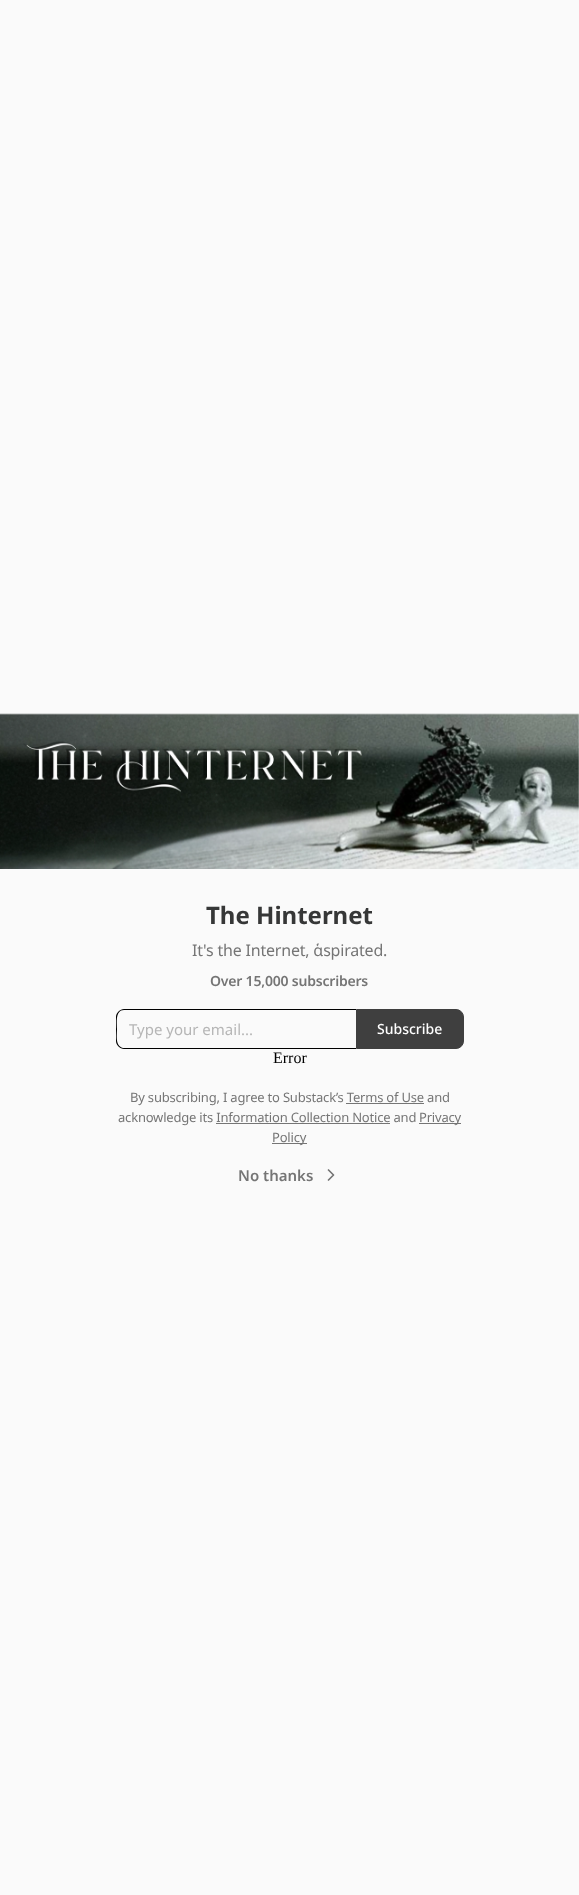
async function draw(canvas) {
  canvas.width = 579
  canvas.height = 1895
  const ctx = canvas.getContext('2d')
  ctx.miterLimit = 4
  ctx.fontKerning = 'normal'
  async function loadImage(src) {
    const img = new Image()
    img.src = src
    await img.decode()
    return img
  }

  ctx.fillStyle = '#fafafa'
  ctx.fillRect(0, 0, 579, 1895)
  ctx.drawImage(await loadImage('image0.png'), 0, 713, 579, 156)
  ctx.font = 'bold 24px Noto Sans'
  ctx.fillStyle = '#363737'
  ctx.fillText('The Hinternet', 206, 924)
  ctx.letterSpacing = '-0.2px'
  ctx.font = '16px Noto Sans'
  ctx.fillStyle = '#757575'
  ctx.fillText('It\'s the Internet, ἁspirated.', 192, 956)
  ctx.font = '600 14px Noto Sans'
  ctx.fillText('Over 15,000 subscribers', 210, 986)
  ctx.fillStyle = '#000'
  ctx.beginPath()
  ctx.moveTo(124, 1009)
  ctx.lineTo(356, 1009)
  ctx.lineTo(356, 1049)
  ctx.lineTo(124, 1049)
  ctx.bezierCurveTo(120, 1049, 116, 1045, 116, 1041)
  ctx.lineTo(116, 1017)
  ctx.bezierCurveTo(116, 1013, 120, 1009, 124, 1009)
  ctx.closePath()
  ctx.moveTo(124, 1010)
  ctx.lineTo(356, 1010)
  ctx.lineTo(356, 1048)
  ctx.lineTo(123, 1048)
  ctx.bezierCurveTo(115, 1046, 117, 1035, 117, 1029)
  ctx.bezierCurveTo(117, 1023, 115, 1010, 124, 1010)
  ctx.closePath()
  ctx.fill('evenodd')
  ctx.letterSpacing = '0px'
  ctx.font = '15px Noto Sans'
  ctx.fillStyle = '#b6b6b6'
  ctx.fillText('Type your email...', 129, 1035)
  ctx.fillStyle = '#3f3f3f'
  ctx.beginPath()
  ctx.roundRect(356.5, 1009.5, 107, 39, [0, 7.5, 7.5, 0])
  ctx.fill()
  ctx.strokeStyle = '#3f3f3f'
  ctx.stroke()
  ctx.font = '500 14px Noto Sans'
  ctx.fillStyle = '#fefefe'
  ctx.fillText('Subscribe', 377, 1034)
  ctx.font = '16px Liberation Serif'
  ctx.fillStyle = '#000'
  ctx.fillText('Error', 273, 1063)
  ctx.letterSpacing = '-0.2px'
  ctx.font = '13px Noto Sans'
  ctx.fillStyle = '#757575'
  ctx.fillText('By subscribing, I agree to Substack’s Terms of Use and', 130, 1102)
  ctx.fillRect(346, 1103, 78, 1)
  ctx.fillText('acknowledge its Information Collection Notice and', 118, 1122)
  ctx.fillRect(419, 1123, 42, 1)
  ctx.fillText('Privacy', 419, 1122)
  ctx.fillRect(216, 1123, 174, 1)
  ctx.fillRect(272, 1143, 35, 1)
  ctx.fillText('Policy', 272, 1142)
  ctx.letterSpacing = '0px'
  ctx.font = '600 15px Noto Sans'
  ctx.fillText('No thanks', 238, 1181)
  ctx.beginPath()
  ctx.moveTo(328.5, 1180)
  ctx.lineTo(333.5, 1175)
  ctx.lineTo(328.5, 1170)
  ctx.strokeStyle = '#757575'
  ctx.lineWidth = 1.7
  ctx.lineCap = 'round'
  ctx.lineJoin = 'round'
  ctx.stroke()
}

draw(document.querySelector('canvas'))
